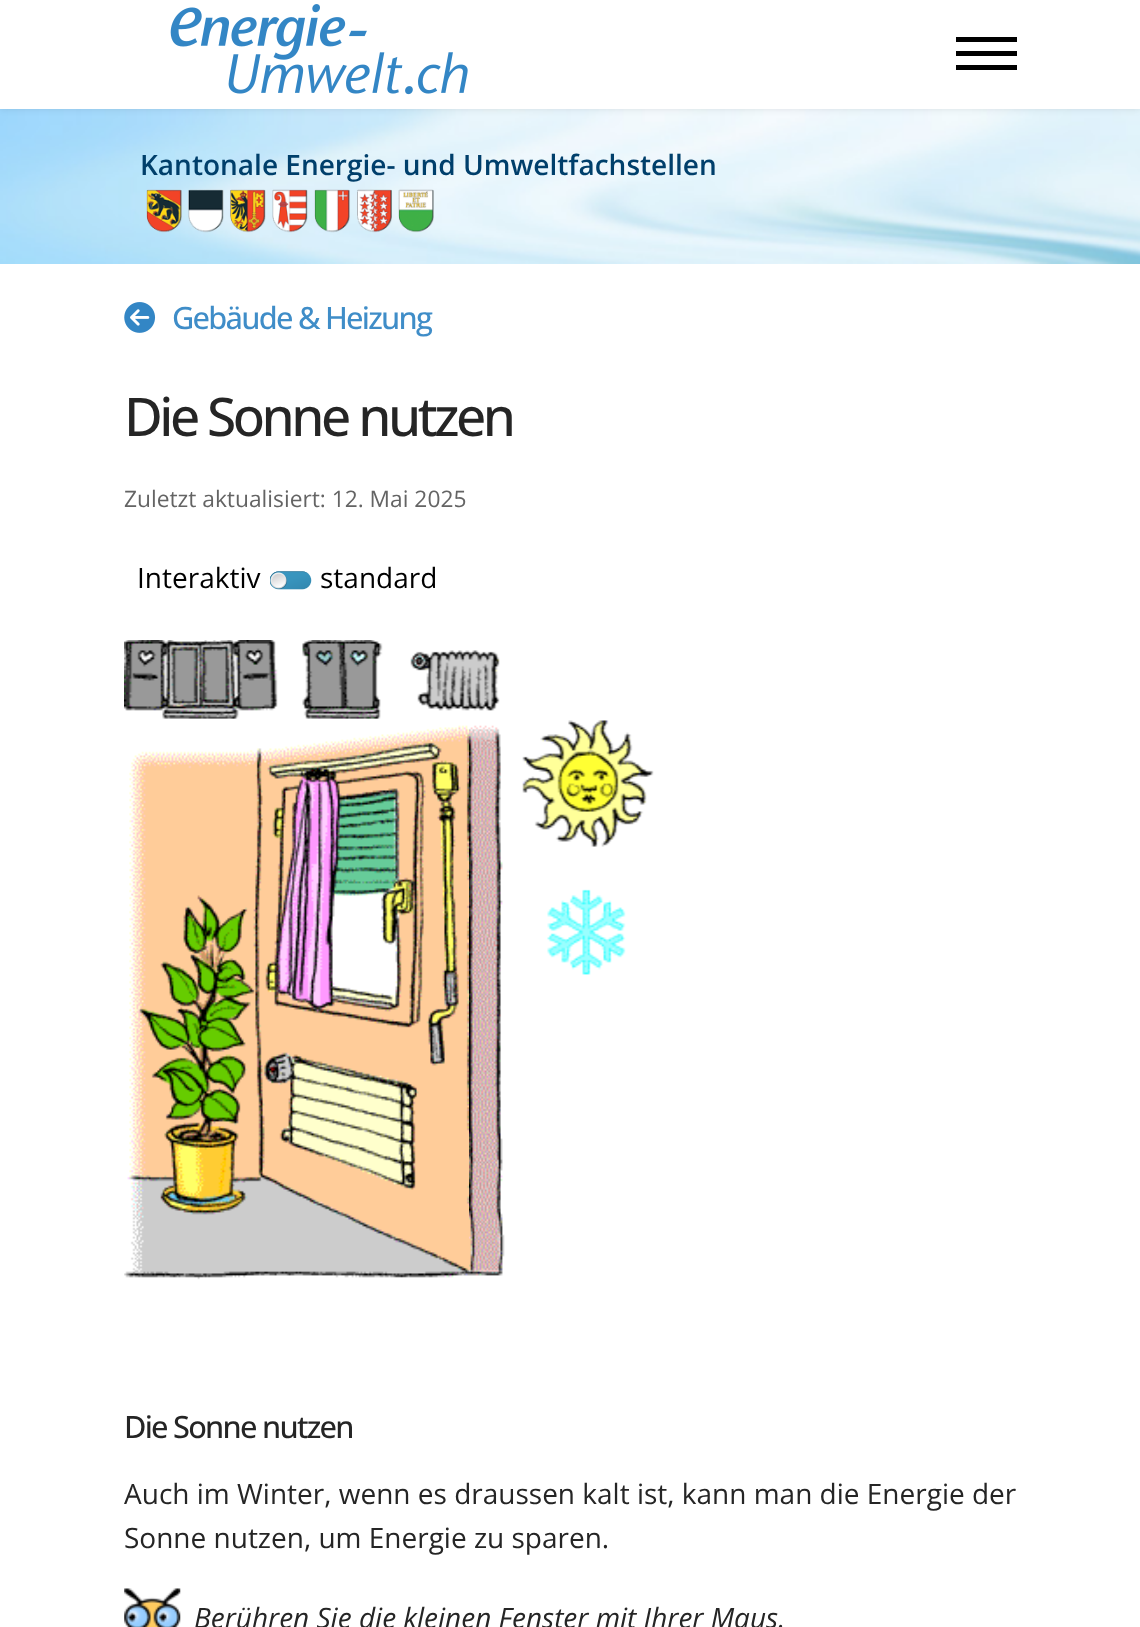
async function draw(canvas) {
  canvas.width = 1140
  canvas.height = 1627
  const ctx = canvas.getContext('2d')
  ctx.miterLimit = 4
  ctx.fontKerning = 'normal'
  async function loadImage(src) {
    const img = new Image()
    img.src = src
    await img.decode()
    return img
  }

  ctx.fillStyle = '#fff'
  ctx.fillRect(0, 0, 1140, 1627)
  ctx.drawImage(await loadImage('image1.png'), 0, 109, 1140, 155)
  ctx.fillStyle = '#0000001a'
  ctx.filter = 'blur(3.5px)'
  ctx.beginPath()
  ctx.rect(0, -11, 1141, 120)
  ctx.fill()
  ctx.filter = 'none'
  ctx.fillStyle = '#fff'
  ctx.fillRect(0, 0, 1140, 109)
  ctx.drawImage(await loadImage('image0.png'), 170, 4, 298, 91)
  ctx.fillStyle = '#000'
  ctx.fillRect(956, 37, 61, 5)
  ctx.fillRect(956, 51, 61, 5)
  ctx.fillRect(956, 65, 61, 5)
  ctx.font = '600 28px Open Sans'
  ctx.fillStyle = '#003f6b'
  ctx.fillText('Kantonale Energie- und Umweltfachstellen', 140, 175)
  ctx.drawImage(await loadImage('image2.png'), 146, 189, 288, 44)
  ctx.drawImage(await loadImage('image3.png'), 124, 302, 32, 31)
  ctx.letterSpacing = '-1.75px'
  ctx.font = '500 30.75px Open Sans'
  ctx.fillStyle = '#3f8dc8'
  ctx.fillText('Gebäude & Heizung', 172, 329)
  ctx.letterSpacing = '-3.5px'
  ctx.font = '500 53.25px Open Sans'
  ctx.fillStyle = '#252525'
  ctx.fillText('Die Sonne nutzen', 124, 436)
  ctx.letterSpacing = '0px'
  ctx.font = '22.75px Open Sans'
  ctx.fillStyle = '#646464'
  ctx.fillText('Zuletzt aktualisiert: 12. Mai 2025', 124, 507)
  ctx.font = '28px Open Sans'
  ctx.fillStyle = '#000'
  ctx.fillText('Interaktiv', 137, 588)
  ctx.drawImage(await loadImage('image4.png'), 270, 571, 42, 19)
  ctx.fillText('standard', 320, 588)
  ctx.drawImage(await loadImage('image5.png'), 124, 640, 376, 79)
  ctx.drawImage(await loadImage('image6.png'), 124, 718, 345, 562)
  ctx.drawImage(await loadImage('image7.png'), 469, 725, 36, 551)
  ctx.drawImage(await loadImage('image8.png'), 522, 720, 132, 255)
  ctx.letterSpacing = '-1.75px'
  ctx.font = '500 30.75px Open Sans'
  ctx.fillStyle = '#252525'
  ctx.fillText('Die Sonne nutzen', 124, 1438)
  ctx.letterSpacing = '0px'
  ctx.font = '28px Open Sans'
  ctx.fillText('Auch im Winter, wenn es draussen kalt ist, kann man die Energie der', 124, 1504)
  ctx.fillText('Sonne nutzen, um Energie zu sparen.', 124, 1548)
  ctx.drawImage(await loadImage('image9.png'), 124, 1588, 57, 39)
  ctx.font = 'italic 28px Open Sans'
  ctx.fillText('Berühren Sie die kleinen Fenster mit Ihrer Maus.', 194, 1628)
}

draw(document.querySelector('canvas'))
